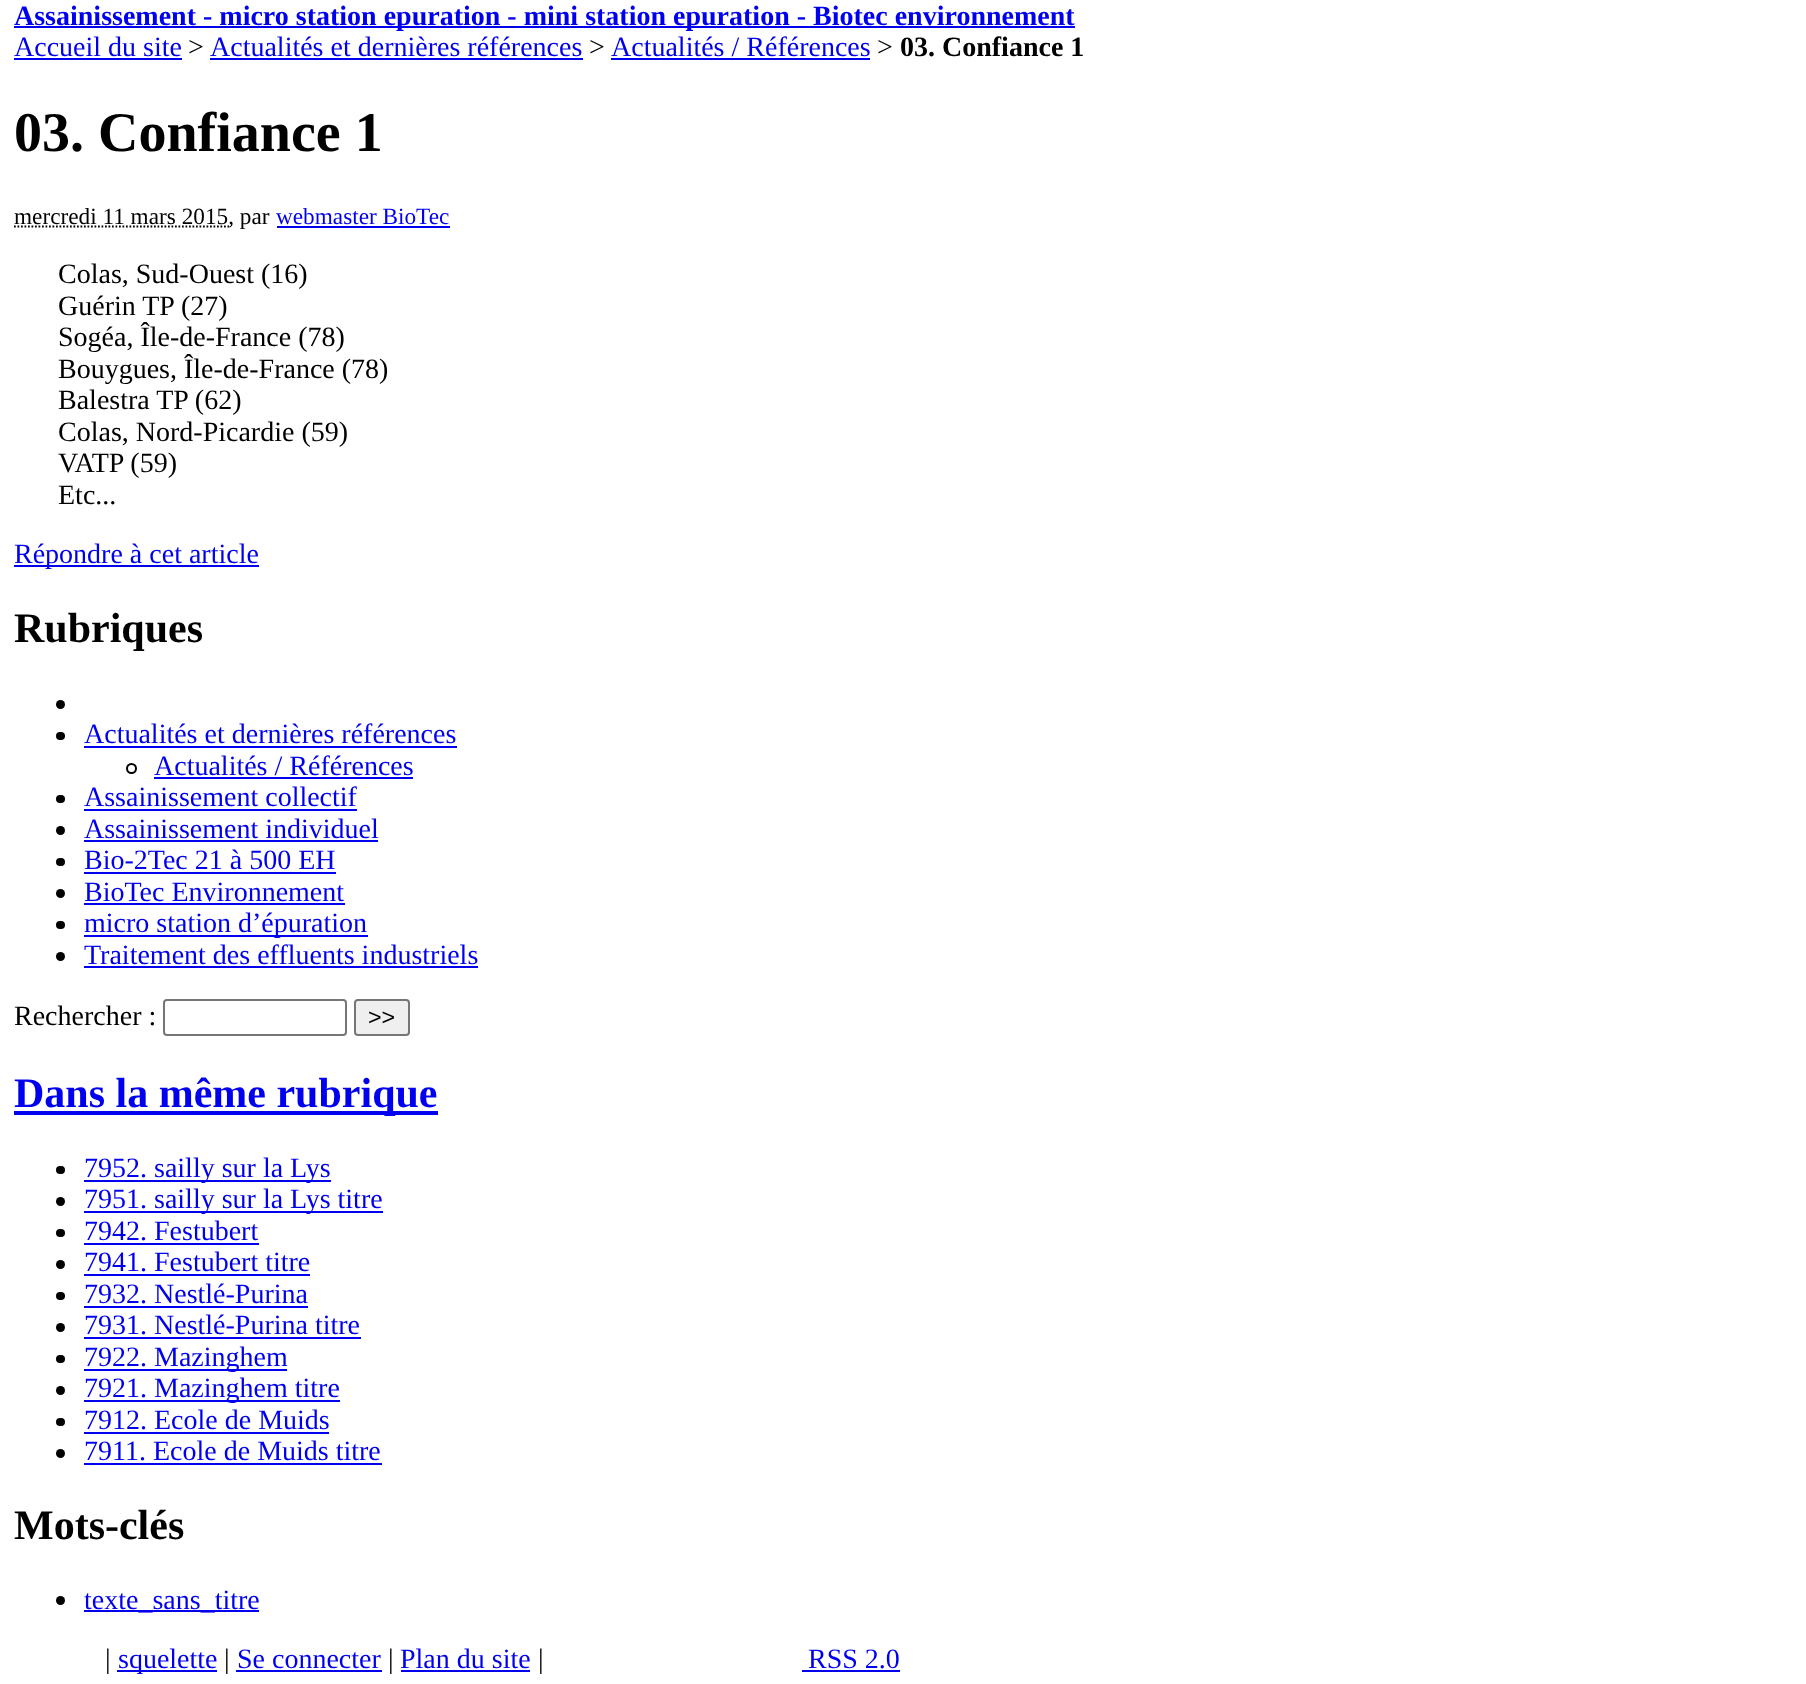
async function draw(canvas) {
  canvas.width = 1806
  canvas.height = 1684
  const ctx = canvas.getContext('2d')
  ctx.miterLimit = 4
  ctx.fontKerning = 'normal'

  ctx.fillStyle = '#fff'
  ctx.fillRect(0, 0, 1806, 1684)
  ctx.fillStyle = '#00e'
  ctx.fillRect(14, 26, 1061, 2)
  ctx.font = 'bold 28px Liberation Serif'
  ctx.fillText('Assainissement - micro station epuration - mini station epuration - Biotec environnement', 14, 25)
  ctx.font = '28px Liberation Serif'
  ctx.fillText('Accueil du site', 14, 56)
  ctx.fillRect(14, 58, 168, 2)
  ctx.fillStyle = '#000'
  ctx.fillText('>', 188, 56)
  ctx.fillStyle = '#00e'
  ctx.fillText('Actualités et dernières références', 210, 56)
  ctx.fillRect(210, 58, 373, 2)
  ctx.fillStyle = '#000'
  ctx.fillText('>', 589, 56)
  ctx.fillStyle = '#00e'
  ctx.fillText('Actualités / Références', 611, 56)
  ctx.fillRect(611, 58, 259, 2)
  ctx.fillStyle = '#000'
  ctx.fillText('>', 877, 56)
  ctx.font = 'bold 28px Liberation Serif'
  ctx.fillText('03. Confiance 1', 900, 56)
  ctx.font = 'bold 56px Liberation Serif'
  ctx.fillText('03. Confiance 1', 14, 151)
  ctx.beginPath()
  ctx.moveTo(14, 226.5)
  ctx.lineTo(229, 226.5)
  ctx.strokeStyle = '#000'
  ctx.lineWidth = 1.8
  ctx.setLineDash([1.75, 1.75])
  ctx.stroke()
  ctx.font = '23.25px Liberation Serif'
  ctx.fillText('mercredi 11 mars 2015, par', 14, 224)
  ctx.fillStyle = '#00e'
  ctx.fillText('webmaster BioTec', 276, 224)
  ctx.fillRect(277, 226, 173, 2)
  ctx.font = '28px Liberation Serif'
  ctx.fillStyle = '#000'
  ctx.fillText('Colas, Sud-Ouest (16)', 58, 283)
  ctx.fillText('Guérin TP (27)', 58, 315)
  ctx.fillText('Sogéa, Île-de-France (78)', 58, 346)
  ctx.fillText('Bouygues, Île-de-France (78)', 58, 378)
  ctx.fillText('Balestra TP (62)', 58, 409)
  ctx.fillText('Colas, Nord-Picardie (59)', 58, 441)
  ctx.fillText('VATP (59)', 58, 472)
  ctx.fillText('Etc...', 58, 504)
  ctx.fillStyle = '#00e'
  ctx.fillRect(14, 565, 245, 2)
  ctx.fillText('Répondre à cet article', 14, 563)
  ctx.font = 'bold 42px Liberation Serif'
  ctx.fillStyle = '#000'
  ctx.fillText('Rubriques', 14, 642)
  ctx.beginPath()
  ctx.arc(60.5, 704.5, 4.5, 0, 2 * Math.PI)
  ctx.fill()
  ctx.beginPath()
  ctx.roundRect(56, 732, 9, 8, 4)
  ctx.fill()
  ctx.font = '28px Liberation Serif'
  ctx.fillStyle = '#00e'
  ctx.fillText('Actualités et dernières références', 84, 743)
  ctx.fillRect(84, 746, 373, 2)
  ctx.beginPath()
  ctx.arc(131.5, 768.5, 4.5, 0, 2 * Math.PI)
  ctx.lineWidth = 2
  ctx.setLineDash([])
  ctx.stroke()
  ctx.fillText('Actualités / Références', 154, 775)
  ctx.fillRect(154, 777, 259, 2)
  ctx.fillStyle = '#000'
  ctx.beginPath()
  ctx.roundRect(56, 795, 9, 8, 4)
  ctx.fill()
  ctx.fillStyle = '#00e'
  ctx.fillText('Assainissement collectif', 84, 806)
  ctx.fillRect(84, 809, 273, 2)
  ctx.fillStyle = '#000'
  ctx.beginPath()
  ctx.arc(60.5, 830.5, 4.5, 0, 2 * Math.PI)
  ctx.fill()
  ctx.fillStyle = '#00e'
  ctx.fillText('Assainissement individuel', 84, 838)
  ctx.fillRect(84, 840, 294, 2)
  ctx.fillStyle = '#000'
  ctx.beginPath()
  ctx.roundRect(56, 858, 9, 8, 4)
  ctx.fill()
  ctx.fillStyle = '#00e'
  ctx.fillText('Bio-2Tec 21 à 500 EH', 84, 869)
  ctx.fillRect(84, 872, 252, 2)
  ctx.fillStyle = '#000'
  ctx.beginPath()
  ctx.arc(60.5, 893.5, 4.5, 0, 2 * Math.PI)
  ctx.fill()
  ctx.fillStyle = '#00e'
  ctx.fillText('BioTec Environnement', 84, 901)
  ctx.fillRect(84, 903, 261, 2)
  ctx.fillStyle = '#000'
  ctx.beginPath()
  ctx.roundRect(56, 921, 9, 8, 4)
  ctx.fill()
  ctx.fillStyle = '#00e'
  ctx.fillRect(84, 935, 284, 2)
  ctx.fillText('micro station d’épuration', 84, 932)
  ctx.fillStyle = '#000'
  ctx.beginPath()
  ctx.arc(60.5, 956.5, 4.5, 0, 2 * Math.PI)
  ctx.fill()
  ctx.fillStyle = '#00e'
  ctx.fillText('Traitement des effluents industriels', 84, 964)
  ctx.fillRect(84, 966, 394, 2)
  ctx.fillStyle = '#000'
  ctx.fillText('Rechercher :', 14, 1025)
  ctx.beginPath()
  ctx.roundRect(164, 1000, 182, 35, 3)
  ctx.strokeStyle = '#767676'
  ctx.stroke()
  ctx.fillStyle = '#efefef'
  ctx.beginPath()
  ctx.roundRect(355, 1000, 54, 35, 3)
  ctx.fill()
  ctx.stroke()
  ctx.font = '23.25px Liberation Sans'
  ctx.fillStyle = '#000'
  ctx.fillText('>>', 368, 1025)
  ctx.fillStyle = '#00e'
  ctx.fillRect(14, 1111, 424, 4)
  ctx.font = 'bold 42px Liberation Serif'
  ctx.fillText('Dans la même rubrique', 14, 1107)
  ctx.fillStyle = '#000'
  ctx.beginPath()
  ctx.roundRect(56, 1166, 9, 8, 4)
  ctx.fill()
  ctx.fillStyle = '#00e'
  ctx.fillRect(84, 1180, 247, 2)
  ctx.font = '28px Liberation Serif'
  ctx.fillText('7952. sailly sur la Lys', 84, 1177)
  ctx.fillStyle = '#000'
  ctx.beginPath()
  ctx.arc(60.5, 1201.5, 4.5, 0, 2 * Math.PI)
  ctx.fill()
  ctx.fillStyle = '#00e'
  ctx.fillRect(84, 1211, 299, 2)
  ctx.fillText('7951. sailly sur la Lys titre', 84, 1208)
  ctx.fillStyle = '#000'
  ctx.beginPath()
  ctx.roundRect(56, 1229, 9, 8, 4)
  ctx.fill()
  ctx.fillStyle = '#00e'
  ctx.fillText('7942. Festubert', 84, 1240)
  ctx.fillRect(84, 1243, 175, 2)
  ctx.fillStyle = '#000'
  ctx.beginPath()
  ctx.arc(60.5, 1264.5, 4.5, 0, 2 * Math.PI)
  ctx.fill()
  ctx.fillStyle = '#00e'
  ctx.fillText('7941. Festubert titre', 84, 1271)
  ctx.fillRect(84, 1274, 226, 2)
  ctx.fillStyle = '#000'
  ctx.beginPath()
  ctx.roundRect(56, 1292, 9, 8, 4)
  ctx.fill()
  ctx.fillStyle = '#00e'
  ctx.fillText('7932. Nestlé-Purina', 84, 1303)
  ctx.fillRect(84, 1306, 224, 2)
  ctx.fillStyle = '#000'
  ctx.beginPath()
  ctx.arc(60.5, 1327.5, 4.5, 0, 2 * Math.PI)
  ctx.fill()
  ctx.fillStyle = '#00e'
  ctx.fillText('7931. Nestlé-Purina titre', 84, 1334)
  ctx.fillRect(84, 1337, 277, 2)
  ctx.fillStyle = '#000'
  ctx.beginPath()
  ctx.roundRect(56, 1355, 9, 8, 4)
  ctx.fill()
  ctx.fillStyle = '#00e'
  ctx.fillRect(84, 1369, 203, 2)
  ctx.fillText('7922. Mazinghem', 84, 1366)
  ctx.fillStyle = '#000'
  ctx.beginPath()
  ctx.arc(60.5, 1390.5, 4.5, 0, 2 * Math.PI)
  ctx.fill()
  ctx.fillStyle = '#00e'
  ctx.fillRect(84, 1400, 256, 2)
  ctx.fillText('7921. Mazinghem titre', 84, 1397)
  ctx.fillStyle = '#000'
  ctx.beginPath()
  ctx.roundRect(56, 1418, 9, 8, 4)
  ctx.fill()
  ctx.fillStyle = '#00e'
  ctx.fillText('7912. Ecole de Muids', 84, 1429)
  ctx.fillRect(84, 1432, 245, 2)
  ctx.fillStyle = '#000'
  ctx.beginPath()
  ctx.arc(60.5, 1453.5, 4.5, 0, 2 * Math.PI)
  ctx.fill()
  ctx.fillStyle = '#00e'
  ctx.fillText('7911. Ecole de Muids titre', 84, 1460)
  ctx.fillRect(84, 1463, 298, 2)
  ctx.font = 'bold 42px Liberation Serif'
  ctx.fillStyle = '#000'
  ctx.fillText('Mots-clés', 14, 1539)
  ctx.beginPath()
  ctx.arc(60.5, 1600.5, 4.5, 0, 2 * Math.PI)
  ctx.fill()
  ctx.fillStyle = '#00e'
  ctx.fillRect(84, 1610, 175, 2)
  ctx.font = '28px Liberation Serif'
  ctx.fillText('texte_sans_titre', 84, 1609)
  ctx.fillStyle = '#000'
  ctx.fillText('|', 105, 1668)
  ctx.fillStyle = '#00e'
  ctx.fillRect(117, 1670, 100, 2)
  ctx.fillText('squelette', 118, 1668)
  ctx.fillStyle = '#000'
  ctx.fillText('|', 224, 1668)
  ctx.fillStyle = '#00e'
  ctx.fillText('Se connecter', 237, 1668)
  ctx.fillRect(236, 1670, 146, 2)
  ctx.fillStyle = '#000'
  ctx.fillText('|', 388, 1668)
  ctx.fillStyle = '#00e'
  ctx.fillText('Plan du site', 400, 1668)
  ctx.fillRect(401, 1670, 129, 2)
  ctx.fillStyle = '#000'
  ctx.fillText('|', 538, 1668)
  ctx.fillStyle = '#00e'
  ctx.fillText('RSS 2.0', 808, 1668)
  ctx.fillRect(802, 1670, 98, 2)
}

draw(document.querySelector('canvas'))
